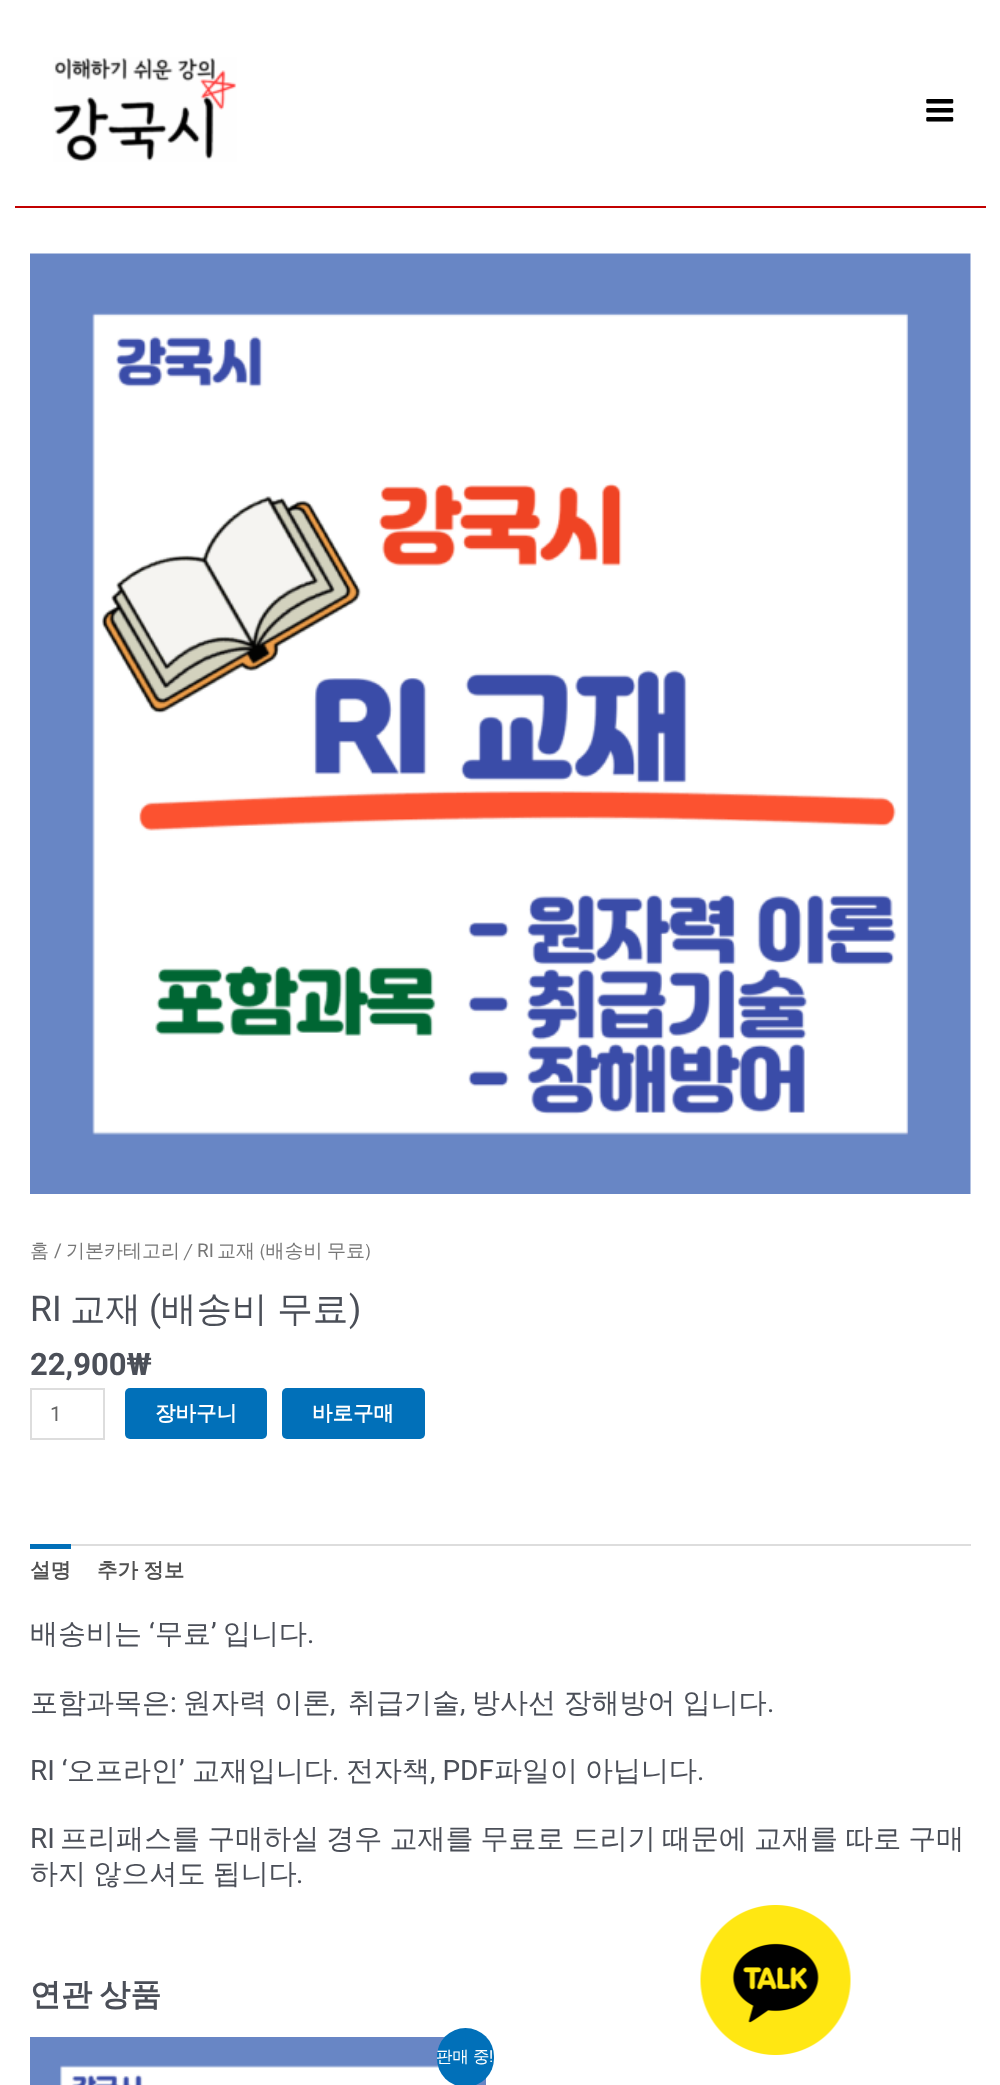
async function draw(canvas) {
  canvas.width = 1000
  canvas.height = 2085
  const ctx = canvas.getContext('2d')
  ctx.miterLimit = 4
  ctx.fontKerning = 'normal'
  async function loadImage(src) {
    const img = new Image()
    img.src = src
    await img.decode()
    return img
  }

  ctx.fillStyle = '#fff'
  ctx.fillRect(0, 0, 1000, 2085)
  ctx.fillStyle = '#c20000'
  ctx.fillRect(15, 206, 971, 2)
  ctx.drawImage(await loadImage('image0.png'), 53, 57, 184, 105)
  ctx.drawImage(await loadImage('image1.png'), 926, 99, 28, 23)
  ctx.drawImage(await loadImage('image2.png'), 30, 253, 941, 941)
  ctx.font = '500 19px WenQuanYi Zen Hei'
  ctx.fillStyle = '#777'
  ctx.fillText('홈', 30, 1257)
  ctx.font = '19px Roboto'
  ctx.fillText('/', 54, 1257)
  ctx.font = '500 19px WenQuanYi Zen Hei'
  ctx.fillText('기본카테고리', 66, 1257)
  ctx.fillText('/', 183, 1257)
  ctx.font = '19px Roboto'
  ctx.fillText('RI', 197, 1257)
  ctx.wordSpacing = '-1px'
  ctx.font = '500 19px WenQuanYi Zen Hei'
  ctx.fillText('교재 (배송비 무료)', 217, 1257)
  ctx.wordSpacing = '0px'
  ctx.font = '35.5px Roboto'
  ctx.fillStyle = '#4b4f58'
  ctx.fillText('RI', 30, 1321)
  ctx.font = '500 35.5px WenQuanYi Zen Hei'
  ctx.fillText('교재', 70, 1321)
  ctx.font = '35.5px Roboto'
  ctx.fillText('(', 149, 1321)
  ctx.wordSpacing = '-1px'
  ctx.font = '500 35.5px WenQuanYi Zen Hei'
  ctx.fillText('배송비 무료', 161, 1321)
  ctx.wordSpacing = '0px'
  ctx.font = '35.5px Roboto'
  ctx.fillText(')', 349, 1321)
  ctx.font = 'bold 31px Roboto'
  ctx.fillText('22,900₩', 30, 1375)
  ctx.strokeStyle = '#ddd'
  ctx.lineWidth = 2
  ctx.strokeRect(31, 1389, 73, 50)
  ctx.font = '20.5px Roboto'
  ctx.fillStyle = '#666'
  ctx.fillText('1', 50, 1421)
  ctx.fillStyle = '#0170b9'
  ctx.beginPath()
  ctx.roundRect(125, 1388, 142, 51, 5)
  ctx.fill()
  ctx.font = 'bold 20.5px WenQuanYi Zen Hei'
  ctx.fillStyle = '#fff'
  ctx.fillText('장바구니', 155, 1420)
  ctx.fillStyle = '#0170b9'
  ctx.beginPath()
  ctx.roundRect(282, 1388, 143, 51, 5)
  ctx.fill()
  ctx.fillStyle = '#fff'
  ctx.fillText('바로구매', 312, 1420)
  ctx.fillStyle = '#ddd'
  ctx.fillRect(71, 1544, 900, 2)
  ctx.fillStyle = '#0170b9'
  ctx.fillRect(30, 1544, 41, 5)
  ctx.fillStyle = '#515151'
  ctx.fillText('설명', 30, 1577)
  ctx.wordSpacing = '-1px'
  ctx.fillText('추가 정보', 97, 1577)
  ctx.wordSpacing = '0px'
  ctx.font = '500 28px WenQuanYi Zen Hei'
  ctx.fillStyle = '#4b4f58'
  ctx.fillText('배송비는', 30, 1643)
  ctx.font = '28px Roboto'
  ctx.fillText('‘', 149, 1643)
  ctx.font = '500 28px WenQuanYi Zen Hei'
  ctx.fillText('무료', 155, 1643)
  ctx.font = '28px Roboto'
  ctx.fillText('’', 211, 1643)
  ctx.font = '500 28px WenQuanYi Zen Hei'
  ctx.fillText('입니다', 223, 1643)
  ctx.font = '28px Roboto'
  ctx.fillText('.', 307, 1643)
  ctx.font = '500 28px WenQuanYi Zen Hei'
  ctx.fillText('포함과목은', 30, 1712)
  ctx.font = '28px Roboto'
  ctx.fillText(':', 170, 1712)
  ctx.wordSpacing = '-1px'
  ctx.font = '500 28px WenQuanYi Zen Hei'
  ctx.fillText('원자력 이론', 183, 1712)
  ctx.wordSpacing = '0px'
  ctx.font = '28px Roboto'
  ctx.fillText(',', 330, 1712)
  ctx.font = '500 28px WenQuanYi Zen Hei'
  ctx.fillText('취급기술', 348, 1712)
  ctx.font = '28px Roboto'
  ctx.fillText(',', 460, 1712)
  ctx.wordSpacing = '-1px'
  ctx.font = '500 28px WenQuanYi Zen Hei'
  ctx.fillText('방사선 장해방어 입니다', 472, 1712)
  ctx.wordSpacing = '0px'
  ctx.font = '28px Roboto'
  ctx.fillText('.', 767, 1712)
  ctx.fillText('RI ‘', 30, 1780)
  ctx.font = '500 28px WenQuanYi Zen Hei'
  ctx.fillText('오프라인', 67, 1780)
  ctx.font = '28px Roboto'
  ctx.fillText('’', 179, 1780)
  ctx.font = '500 28px WenQuanYi Zen Hei'
  ctx.fillText('교재입니다', 192, 1780)
  ctx.font = '28px Roboto'
  ctx.fillText('.', 332, 1780)
  ctx.font = '500 28px WenQuanYi Zen Hei'
  ctx.fillText('전자책', 346, 1780)
  ctx.font = '28px Roboto'
  ctx.fillText(', PDF', 430, 1780)
  ctx.font = '500 28px WenQuanYi Zen Hei'
  ctx.fillText('파일이', 494, 1780)
  ctx.fillText('아닙니다', 585, 1780)
  ctx.font = '28px Roboto'
  ctx.fillText('.', 697, 1780)
  ctx.fillText('RI', 30, 1848)
  ctx.wordSpacing = '-1.25px'
  ctx.font = '500 28px WenQuanYi Zen Hei'
  ctx.fillText('프리패스를 구매하실 경우 교재를 무료로 드리기 때문에 교재를 따로 구매', 60, 1848)
  ctx.wordSpacing = '-1px'
  ctx.fillText('하지 않으셔도 됩니다', 30, 1883)
  ctx.wordSpacing = '0px'
  ctx.font = '28px Roboto'
  ctx.fillText('.', 296, 1883)
  ctx.wordSpacing = '-2px'
  ctx.font = 'bold 31px WenQuanYi Zen Hei'
  ctx.fillText('연관 상품', 30, 2005)
  ctx.drawImage(await loadImage('image3.png'), 30, 2037, 456, 48)
  ctx.fillStyle = '#0170b9'
  ctx.beginPath()
  ctx.roundRect(437, 2028, 57, 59, 28.5)
  ctx.fill()
  ctx.wordSpacing = '-1px'
  ctx.font = '500 16.5px WenQuanYi Zen Hei'
  ctx.fillStyle = '#fff'
  ctx.fillText('판매 중', 436, 2062)
  ctx.wordSpacing = '0px'
  ctx.font = '16.5px Roboto'
  ctx.fillText('!', 489, 2062)
  ctx.drawImage(await loadImage('image4.png'), 700, 1905, 151, 150)
}

draw(document.querySelector('canvas'))
